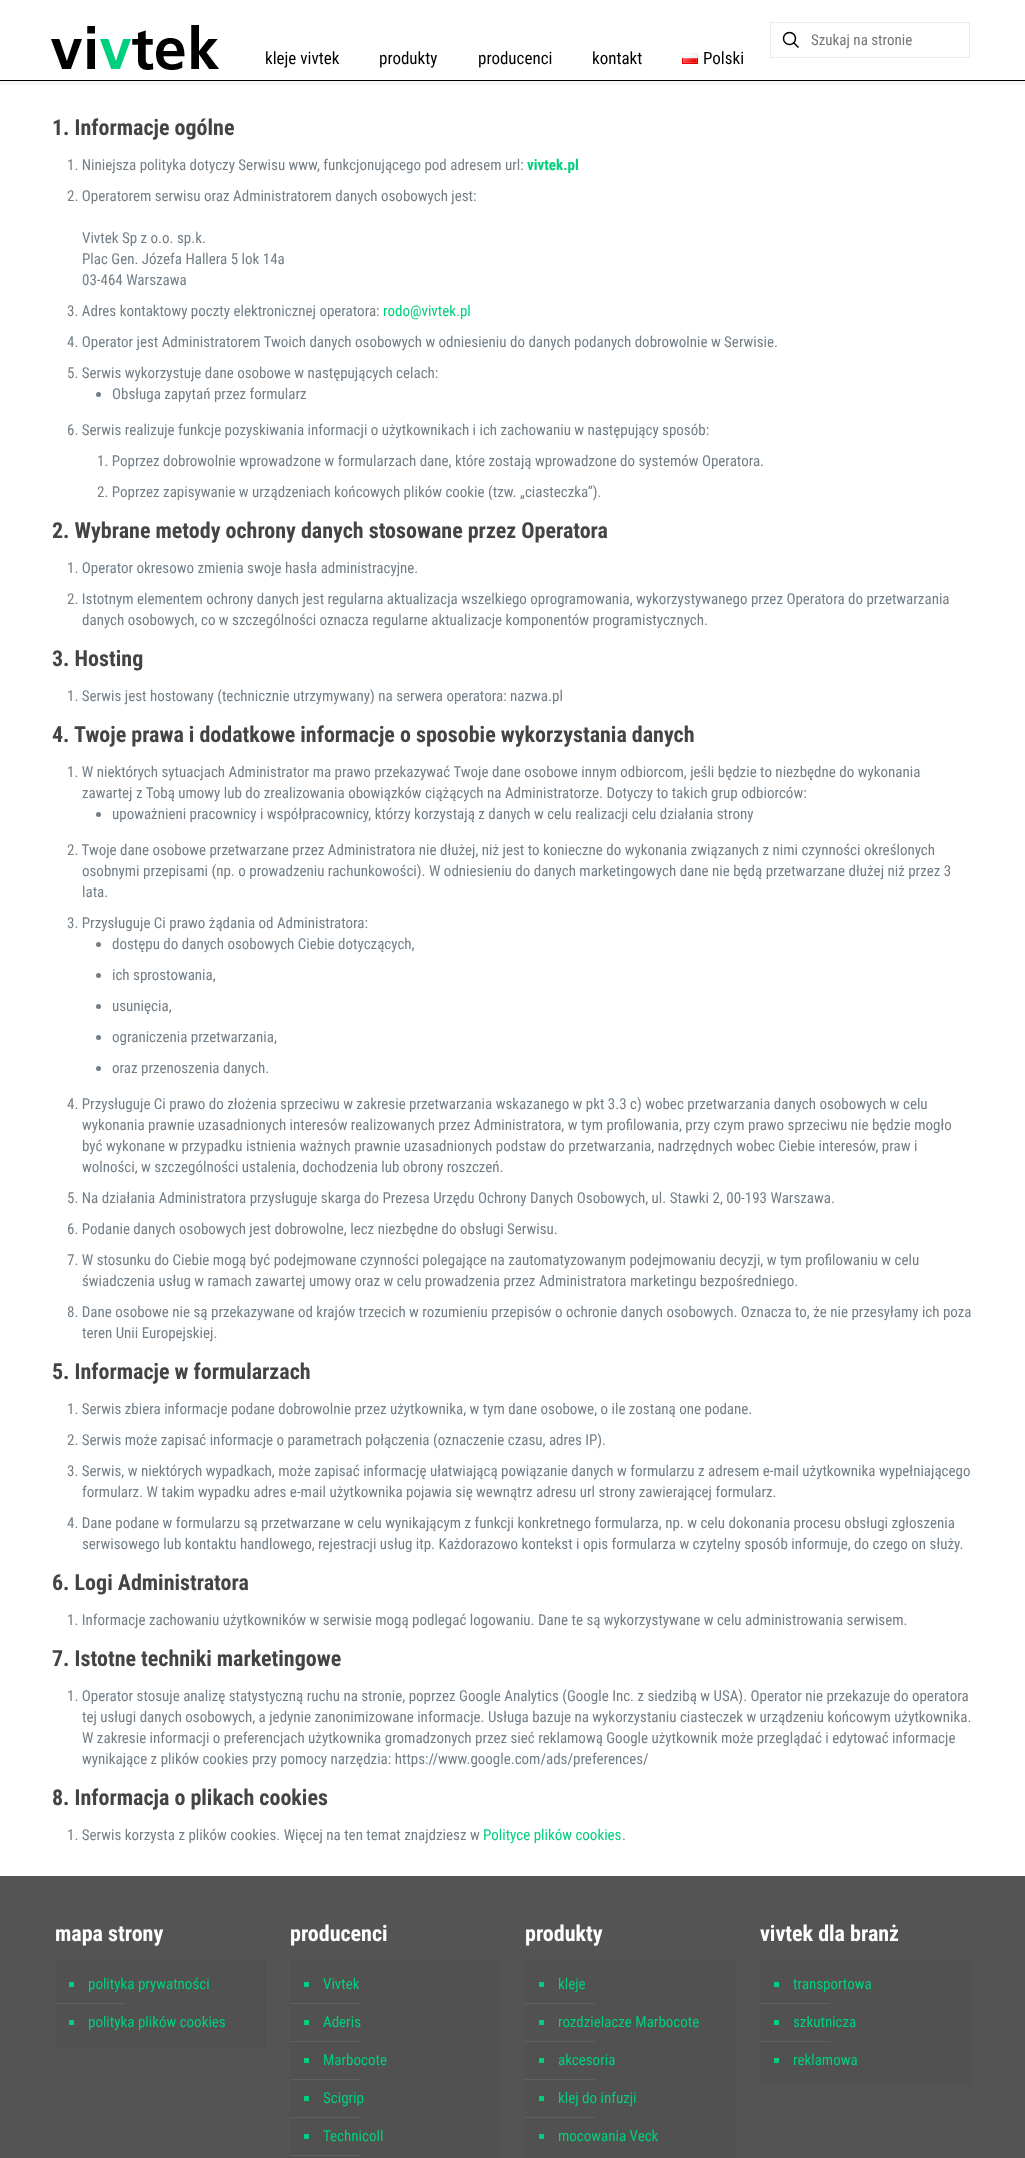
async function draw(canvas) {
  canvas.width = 1025
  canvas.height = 2158
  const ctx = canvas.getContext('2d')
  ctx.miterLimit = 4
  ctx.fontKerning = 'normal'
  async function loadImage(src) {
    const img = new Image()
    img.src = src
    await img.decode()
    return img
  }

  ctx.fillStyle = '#fff'
  ctx.fillRect(0, 0, 1025, 2158)
  ctx.fillStyle = '#000'
  ctx.fillRect(0, 80, 1025, 1)
  ctx.strokeStyle = '#ebebeb'
  ctx.strokeRect(770.5, 22.5, 199, 35)
  ctx.beginPath()
  ctx.arc(789.5, 38.5, 6, 0, 2 * Math.PI)
  ctx.strokeStyle = '#000'
  ctx.lineWidth = 1.5
  ctx.stroke()
  ctx.beginPath()
  ctx.moveTo(793.5, 42.5)
  ctx.lineTo(798.5, 47.5)
  ctx.stroke()
  ctx.font = '15px Roboto Condensed'
  ctx.fillStyle = '#757575'
  ctx.fillText('Szukaj na stronie', 811, 45)
  ctx.drawImage(await loadImage('image0.png'), 51, 25, 168, 45)
  ctx.font = '17px Roboto Condensed'
  ctx.fillStyle = '#000'
  ctx.fillText('kleje vivtek', 265, 64)
  ctx.fillText('produkty', 379, 64)
  ctx.fillText('producenci', 478, 64)
  ctx.fillText('kontakt', 592, 64)
  ctx.drawImage(await loadImage('image1.png'), 682, 53, 16, 11)
  ctx.fillText('Polski', 703, 64)
  ctx.fillStyle = '#f7f7f7'
  ctx.fillRect(0, 81, 1025, 4)
  ctx.font = 'bold 22px Roboto Condensed'
  ctx.fillStyle = '#444'
  ctx.fillText('1. Informacje ogólne', 52, 135)
  ctx.font = '15px Roboto Condensed'
  ctx.fillStyle = '#737e86'
  ctx.fillText('1. Niniejsza polityka dotyczy Serwisu www, funkcjonującego pod adresem url:', 67, 170)
  ctx.font = 'bold 15px Roboto Condensed'
  ctx.fillStyle = '#00cf7d'
  ctx.fillText('vivtek.pl', 527, 170)
  ctx.font = '15px Roboto Condensed'
  ctx.fillStyle = '#737e86'
  ctx.fillText('2. Operatorem serwisu oraz Administratorem danych osobowych jest:', 67, 201)
  ctx.fillText('Vivtek Sp z o.o. sp.k.', 82, 243)
  ctx.fillText('Plac Gen. Józefa Hallera 5 lok 14a', 82, 264)
  ctx.fillText('03-464 Warszawa', 82, 285)
  ctx.fillText('3. Adres kontaktowy poczty elektronicznej operatora:', 67, 316)
  ctx.fillStyle = '#00cf7d'
  ctx.fillText('rodo@vivtek.pl', 383, 316)
  ctx.fillStyle = '#737e86'
  ctx.fillText('4. Operator jest Administratorem Twoich danych osobowych w odniesieniu do danych podanych dobrowolnie w Serwisie.', 67, 347)
  ctx.fillText('5. Serwis wykorzystuje dane osobowe w następujących celach:', 67, 378)
  ctx.beginPath()
  ctx.arc(98.5, 394.5, 2.5, 0, 2 * Math.PI)
  ctx.fill()
  ctx.fillText('Obsługa zapytań przez formularz', 112, 399)
  ctx.fillText('6. Serwis realizuje funkcje pozyskiwania informacji o użytkownikach i ich zachowaniu w następujący sposób:', 67, 435)
  ctx.fillText('1. Poprzez dobrowolnie wprowadzone w formularzach dane, które zostają wprowadzone do systemów Operatora.', 97, 466)
  ctx.fillText('2. Poprzez zapisywanie w urządzeniach końcowych plików cookie (tzw. „ciasteczka”).', 97, 497)
  ctx.font = 'bold 22px Roboto Condensed'
  ctx.fillStyle = '#444'
  ctx.fillText('2. Wybrane metody ochrony danych stosowane przez Operatora', 52, 538)
  ctx.font = '15px Roboto Condensed'
  ctx.fillStyle = '#737e86'
  ctx.fillText('1. Operator okresowo zmienia swoje hasła administracyjne.', 67, 573)
  ctx.fillText('2. Istotnym elementem ochrony danych jest regularna aktualizacja wszelkiego oprogramowania, wykorzystywanego przez Operatora do przetwarzania', 67, 604)
  ctx.fillText('danych osobowych, co w szczególności oznacza regularne aktualizacje komponentów programistycznych.', 82, 625)
  ctx.font = 'bold 22px Roboto Condensed'
  ctx.fillStyle = '#444'
  ctx.fillText('3. Hosting', 52, 666)
  ctx.font = '15px Roboto Condensed'
  ctx.fillStyle = '#737e86'
  ctx.fillText('1. Serwis jest hostowany (technicznie utrzymywany) na serwera operatora: nazwa.pl', 67, 701)
  ctx.font = 'bold 22px Roboto Condensed'
  ctx.fillStyle = '#444'
  ctx.fillText('4. Twoje prawa i dodatkowe informacje o sposobie wykorzystania danych', 52, 742)
  ctx.font = '15px Roboto Condensed'
  ctx.fillStyle = '#737e86'
  ctx.fillText('1. W niektórych sytuacjach Administrator ma prawo przekazywać Twoje dane osobowe innym odbiorcom, jeśli będzie to niezbędne do wykonania', 67, 777)
  ctx.fillText('zawartej z Tobą umowy lub do zrealizowania obowiązków ciążących na Administratorze. Dotyczy to takich grup odbiorców:', 82, 798)
  ctx.beginPath()
  ctx.arc(98.5, 814.5, 2.5, 0, 2 * Math.PI)
  ctx.fill()
  ctx.fillText('upoważnieni pracownicy i współpracownicy, którzy korzystają z danych w celu realizacji celu działania strony', 112, 819)
  ctx.fillText('2. Twoje dane osobowe przetwarzane przez Administratora nie dłużej, niż jest to konieczne do wykonania związanych z nimi czynności określonych', 67, 855)
  ctx.fillText('osobnymi przepisami (np. o prowadzeniu rachunkowości). W odniesieniu do danych marketingowych dane nie będą przetwarzane dłużej niż przez 3', 82, 876)
  ctx.fillText('lata.', 82, 897)
  ctx.fillText('3. Przysługuje Ci prawo żądania od Administratora:', 67, 928)
  ctx.beginPath()
  ctx.arc(98.5, 944.5, 2.5, 0, 2 * Math.PI)
  ctx.fill()
  ctx.fillText('dostępu do danych osobowych Ciebie dotyczących,', 112, 949)
  ctx.beginPath()
  ctx.arc(98.5, 975.5, 2.5, 0, 2 * Math.PI)
  ctx.fill()
  ctx.fillText('ich sprostowania,', 112, 980)
  ctx.beginPath()
  ctx.arc(98.5, 1006.5, 2.5, 0, 2 * Math.PI)
  ctx.fill()
  ctx.fillText('usunięcia,', 112, 1011)
  ctx.beginPath()
  ctx.arc(98.5, 1037.5, 2.5, 0, 2 * Math.PI)
  ctx.fill()
  ctx.fillText('ograniczenia przetwarzania,', 112, 1042)
  ctx.beginPath()
  ctx.arc(98.5, 1068.5, 2.5, 0, 2 * Math.PI)
  ctx.fill()
  ctx.fillText('oraz przenoszenia danych.', 112, 1073)
  ctx.fillText('4. Przysługuje Ci prawo do złożenia sprzeciwu w zakresie przetwarzania wskazanego w pkt 3.3 c) wobec przetwarzania danych osobowych w celu', 67, 1109)
  ctx.fillText('wykonania prawnie uzasadnionych interesów realizowanych przez Administratora, w tym profilowania, przy czym prawo sprzeciwu nie będzie mogło', 82, 1130)
  ctx.fillText('być wykonane w przypadku istnienia ważnych prawnie uzasadnionych podstaw do przetwarzania, nadrzędnych wobec Ciebie interesów, praw i', 82, 1151)
  ctx.fillText('wolności, w szczególności ustalenia, dochodzenia lub obrony roszczeń.', 82, 1172)
  ctx.fillText('5. Na działania Administratora przysługuje skarga do Prezesa Urzędu Ochrony Danych Osobowych, ul. Stawki 2, 00-193 Warszawa.', 67, 1203)
  ctx.fillText('6. Podanie danych osobowych jest dobrowolne, lecz niezbędne do obsługi Serwisu.', 67, 1234)
  ctx.fillText('7. W stosunku do Ciebie mogą być podejmowane czynności polegające na zautomatyzowanym podejmowaniu decyzji, w tym profilowaniu w celu', 67, 1265)
  ctx.fillText('świadczenia usług w ramach zawartej umowy oraz w celu prowadzenia przez Administratora marketingu bezpośredniego.', 82, 1286)
  ctx.fillText('8. Dane osobowe nie są przekazywane od krajów trzecich w rozumieniu przepisów o ochronie danych osobowych. Oznacza to, że nie przesyłamy ich poza', 67, 1317)
  ctx.fillText('teren Unii Europejskiej.', 82, 1338)
  ctx.font = 'bold 22px Roboto Condensed'
  ctx.fillStyle = '#444'
  ctx.fillText('5. Informacje w formularzach', 52, 1379)
  ctx.font = '15px Roboto Condensed'
  ctx.fillStyle = '#737e86'
  ctx.fillText('1. Serwis zbiera informacje podane dobrowolnie przez użytkownika, w tym dane osobowe, o ile zostaną one podane.', 67, 1414)
  ctx.fillText('2. Serwis może zapisać informacje o parametrach połączenia (oznaczenie czasu, adres IP).', 67, 1445)
  ctx.fillText('3. Serwis, w niektórych wypadkach, może zapisać informację ułatwiającą powiązanie danych w formularzu z adresem e-mail użytkownika wypełniającego', 67, 1476)
  ctx.fillText('formularz. W takim wypadku adres e-mail użytkownika pojawia się wewnątrz adresu url strony zawierającej formularz.', 82, 1497)
  ctx.fillText('4. Dane podane w formularzu są przetwarzane w celu wynikającym z funkcji konkretnego formularza, np. w celu dokonania procesu obsługi zgłoszenia', 67, 1528)
  ctx.fillText('serwisowego lub kontaktu handlowego, rejestracji usług itp. Każdorazowo kontekst i opis formularza w czytelny sposób informuje, do czego on służy.', 82, 1549)
  ctx.font = 'bold 22px Roboto Condensed'
  ctx.fillStyle = '#444'
  ctx.fillText('6. Logi Administratora', 52, 1590)
  ctx.font = '15px Roboto Condensed'
  ctx.fillStyle = '#737e86'
  ctx.fillText('1. Informacje zachowaniu użytkowników w serwisie mogą podlegać logowaniu. Dane te są wykorzystywane w celu administrowania serwisem.', 67, 1625)
  ctx.font = 'bold 22px Roboto Condensed'
  ctx.fillStyle = '#444'
  ctx.fillText('7. Istotne techniki marketingowe', 52, 1666)
  ctx.font = '15px Roboto Condensed'
  ctx.fillStyle = '#737e86'
  ctx.fillText('1. Operator stosuje analizę statystyczną ruchu na stronie, poprzez Google Analytics (Google Inc. z siedzibą w USA). Operator nie przekazuje do operatora', 67, 1701)
  ctx.fillText('tej usługi danych osobowych, a jedynie zanonimizowane informacje. Usługa bazuje na wykorzystaniu ciasteczek w urządzeniu końcowym użytkownika.', 82, 1722)
  ctx.fillText('W zakresie informacji o preferencjach użytkownika gromadzonych przez sieć reklamową Google użytkownik może przeglądać i edytować informacje', 82, 1743)
  ctx.fillText('wynikające z plików cookies przy pomocy narzędzia: https://www.google.com/ads/preferences/', 82, 1764)
  ctx.font = 'bold 22px Roboto Condensed'
  ctx.fillStyle = '#444'
  ctx.fillText('8. Informacja o plikach cookies', 52, 1805)
  ctx.font = '15px Roboto Condensed'
  ctx.fillStyle = '#737e86'
  ctx.fillText('1. Serwis korzysta z plików cookies. Więcej na ten temat znajdziesz w', 67, 1840)
  ctx.fillStyle = '#00cf7d'
  ctx.fillText('Polityce plików cookies', 483, 1840)
  ctx.fillStyle = '#737e86'
  ctx.fillText('.', 622, 1840)
  ctx.fillStyle = '#545454'
  ctx.fillRect(0, 1876, 1025, 282)
  ctx.font = 'bold 22px Roboto Condensed'
  ctx.fillStyle = '#fff'
  ctx.fillText('mapa strony', 55, 1941)
  ctx.fillStyle = '#515151'
  ctx.fillRect(55, 1961, 211, 86)
  ctx.fillStyle = '#00cf7d'
  ctx.fillRect(69, 1982, 5, 5)
  ctx.font = '15px Roboto Condensed'
  ctx.fillText('polityka prywatności', 88, 1989)
  ctx.fillStyle = '#5f5f5f'
  ctx.fillRect(55, 2003, 70, 1)
  ctx.fillStyle = '#00cf7d'
  ctx.fillRect(69, 2020, 5, 5)
  ctx.fillText('polityka plików cookies', 88, 2027)
  ctx.font = 'bold 22px Roboto Condensed'
  ctx.fillStyle = '#fff'
  ctx.fillText('producenci', 290, 1941)
  ctx.fillStyle = '#515151'
  ctx.fillRect(290, 1961, 211, 197)
  ctx.fillStyle = '#00cf7d'
  ctx.fillRect(304, 1982, 5, 5)
  ctx.font = '15px Roboto Condensed'
  ctx.fillText('Vivtek', 323, 1989)
  ctx.fillStyle = '#5f5f5f'
  ctx.fillRect(290, 2003, 70, 1)
  ctx.fillStyle = '#00cf7d'
  ctx.fillRect(304, 2020, 5, 5)
  ctx.fillText('Aderis', 323, 2027)
  ctx.fillStyle = '#5f5f5f'
  ctx.fillRect(290, 2041, 70, 1)
  ctx.fillStyle = '#00cf7d'
  ctx.fillRect(304, 2058, 5, 5)
  ctx.fillText('Marbocote', 323, 2065)
  ctx.fillStyle = '#5f5f5f'
  ctx.fillRect(290, 2079, 70, 1)
  ctx.fillStyle = '#00cf7d'
  ctx.fillRect(304, 2096, 5, 5)
  ctx.fillText('Scigrip', 323, 2103)
  ctx.fillStyle = '#5f5f5f'
  ctx.fillRect(290, 2117, 70, 1)
  ctx.fillStyle = '#00cf7d'
  ctx.fillRect(304, 2134, 5, 5)
  ctx.fillText('Technicoll', 323, 2141)
  ctx.fillStyle = '#5f5f5f'
  ctx.fillRect(290, 2155, 70, 1)
  ctx.font = 'bold 22px Roboto Condensed'
  ctx.fillStyle = '#fff'
  ctx.fillText('produkty', 525, 1941)
  ctx.fillStyle = '#515151'
  ctx.fillRect(525, 1961, 211, 197)
  ctx.fillStyle = '#00cf7d'
  ctx.fillRect(539, 1982, 5, 5)
  ctx.font = '15px Roboto Condensed'
  ctx.fillText('kleje', 558, 1989)
  ctx.fillStyle = '#5f5f5f'
  ctx.fillRect(525, 2003, 70, 1)
  ctx.fillStyle = '#00cf7d'
  ctx.fillRect(539, 2020, 5, 5)
  ctx.fillText('rozdzielacze Marbocote', 558, 2027)
  ctx.fillStyle = '#5f5f5f'
  ctx.fillRect(525, 2041, 70, 1)
  ctx.fillStyle = '#00cf7d'
  ctx.fillRect(539, 2058, 5, 5)
  ctx.fillText('akcesoria', 558, 2065)
  ctx.fillStyle = '#5f5f5f'
  ctx.fillRect(525, 2079, 70, 1)
  ctx.fillStyle = '#00cf7d'
  ctx.fillRect(539, 2096, 5, 5)
  ctx.fillText('klej do infuzji', 558, 2103)
  ctx.fillStyle = '#5f5f5f'
  ctx.fillRect(525, 2117, 70, 1)
  ctx.fillStyle = '#00cf7d'
  ctx.fillRect(539, 2134, 5, 5)
  ctx.fillText('mocowania Veck', 558, 2141)
  ctx.font = 'bold 22px Roboto Condensed'
  ctx.fillStyle = '#fff'
  ctx.fillText('vivtek dla branż', 760, 1941)
  ctx.fillStyle = '#515151'
  ctx.fillRect(760, 1961, 211, 124)
  ctx.fillStyle = '#00cf7d'
  ctx.fillRect(774, 1982, 5, 5)
  ctx.font = '15px Roboto Condensed'
  ctx.fillText('transportowa', 793, 1989)
  ctx.fillStyle = '#5f5f5f'
  ctx.fillRect(760, 2003, 70, 1)
  ctx.fillStyle = '#00cf7d'
  ctx.fillRect(774, 2020, 5, 5)
  ctx.fillText('szkutnicza', 793, 2027)
  ctx.fillStyle = '#5f5f5f'
  ctx.fillRect(760, 2041, 70, 1)
  ctx.fillStyle = '#00cf7d'
  ctx.fillRect(774, 2058, 5, 5)
  ctx.fillText('reklamowa', 793, 2065)
}

draw(document.querySelector('canvas'))
